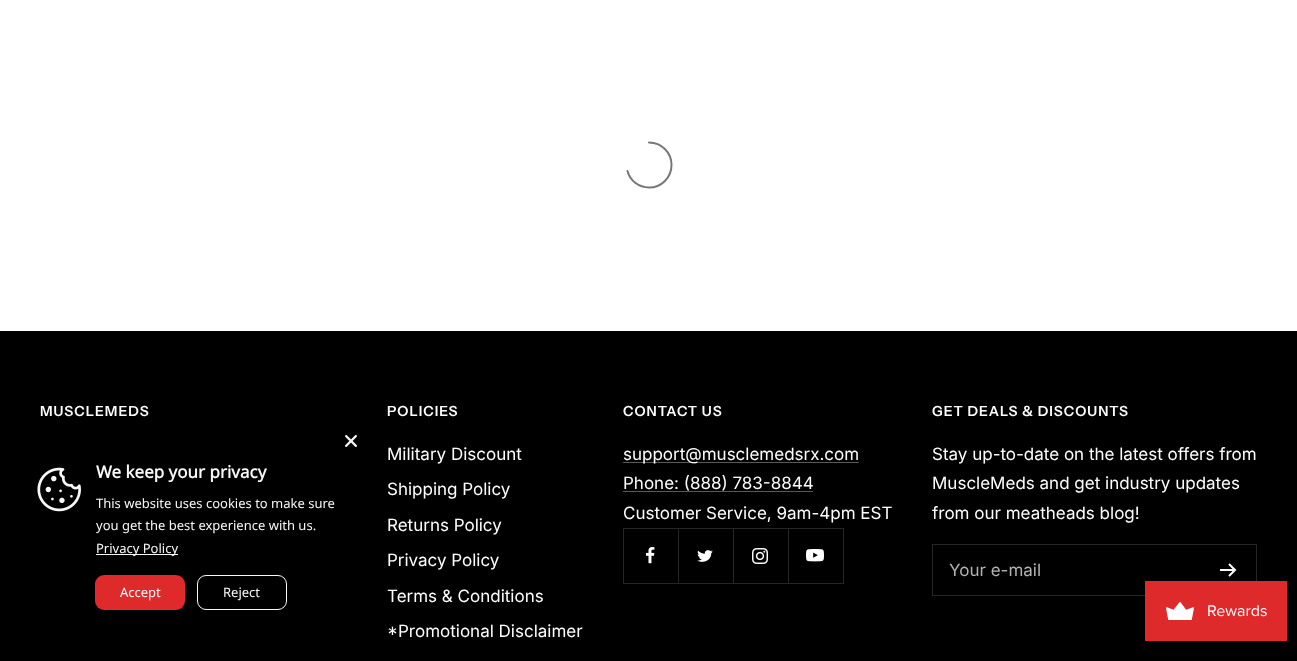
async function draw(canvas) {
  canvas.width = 1297
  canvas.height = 661
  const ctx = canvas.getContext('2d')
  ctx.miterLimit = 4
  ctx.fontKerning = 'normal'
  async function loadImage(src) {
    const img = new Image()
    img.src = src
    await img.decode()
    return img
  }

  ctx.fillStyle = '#fff'
  ctx.fillRect(0, 0, 1297, 661)
  ctx.beginPath()
  ctx.moveTo(649, 142.5)
  ctx.bezierCurveTo(661.5, 142.5, 671.5, 152.5, 671.5, 165)
  ctx.bezierCurveTo(671.5, 177.5, 661.5, 187.5, 649, 187.5)
  ctx.bezierCurveTo(638.5, 187.5, 630, 180.5, 627.5, 171)
  ctx.strokeStyle = '#777'
  ctx.lineWidth = 2
  ctx.lineCap = 'round'
  ctx.stroke()
  ctx.fillStyle = '#000'
  ctx.fillRect(0, 331, 1297, 330)
  ctx.letterSpacing = '1px'
  ctx.font = '600 14px Instrument Sans'
  ctx.fillStyle = '#fff'
  ctx.fillText('MUSCLEMEDS', 40, 416)
  ctx.fillText('POLICIES', 387, 416)
  ctx.letterSpacing = '0px'
  ctx.font = '17px Inter'
  ctx.fillText('Military Discount', 387, 460)
  ctx.fillText('Shipping Policy', 387, 495)
  ctx.fillText('Returns Policy', 387, 531)
  ctx.fillText('Privacy Policy', 387, 566)
  ctx.fillText('Terms & Conditions', 387, 602)
  ctx.fillText('*Promotional Disclaimer', 387, 637)
  ctx.letterSpacing = '1px'
  ctx.font = '600 14px Instrument Sans'
  ctx.fillText('CONTACT US', 623, 416)
  ctx.fillStyle = '#595959'
  ctx.fillRect(623, 462, 236, 1)
  ctx.letterSpacing = '0px'
  ctx.font = '17px Inter'
  ctx.fillStyle = '#fff'
  ctx.fillText('support@musclemedsrx.com', 623, 460)
  ctx.fillText('Phone: (888) 783-8844', 623, 489)
  ctx.fillStyle = '#595959'
  ctx.fillRect(623, 491, 190, 1)
  ctx.fillStyle = '#fff'
  ctx.fillText('Customer Service, 9am-4pm EST', 623, 519)
  ctx.fillStyle = '#262626'
  ctx.beginPath()
  ctx.moveTo(624, 583)
  ctx.lineTo(624, 584)
  ctx.lineTo(679, 584)
  ctx.lineTo(679, 529)
  ctx.lineTo(678, 529)
  ctx.lineTo(678, 583)
  ctx.closePath()
  ctx.fill()
  ctx.fillRect(623, 583, 1, 1)
  ctx.fillRect(623, 528, 56, 1)
  ctx.fillRect(623, 528, 1, 55)
  ctx.drawImage(await loadImage('image0.png'), 646, 547, 9, 17)
  ctx.beginPath()
  ctx.moveTo(679, 583)
  ctx.lineTo(679, 584)
  ctx.lineTo(734, 584)
  ctx.lineTo(734, 529)
  ctx.lineTo(733, 529)
  ctx.lineTo(733, 583)
  ctx.closePath()
  ctx.fill()
  ctx.fillRect(678, 528, 56, 1)
  ctx.drawImage(await loadImage('image1.png'), 697, 550, 16, 12)
  ctx.beginPath()
  ctx.moveTo(734, 583)
  ctx.lineTo(734, 584)
  ctx.lineTo(789, 584)
  ctx.lineTo(789, 529)
  ctx.lineTo(788, 529)
  ctx.lineTo(788, 583)
  ctx.closePath()
  ctx.fill()
  ctx.fillRect(733, 528, 56, 1)
  ctx.drawImage(await loadImage('image2.png'), 752, 548, 16, 16)
  ctx.beginPath()
  ctx.moveTo(789, 583)
  ctx.lineTo(789, 584)
  ctx.lineTo(844, 584)
  ctx.lineTo(844, 529)
  ctx.lineTo(843, 529)
  ctx.lineTo(843, 583)
  ctx.closePath()
  ctx.fill()
  ctx.fillRect(788, 528, 56, 1)
  ctx.drawImage(await loadImage('image3.png'), 806, 549, 18, 13)
  ctx.letterSpacing = '1px'
  ctx.font = '600 14px Instrument Sans'
  ctx.fillStyle = '#fff'
  ctx.fillText('GET DEALS & DISCOUNTS', 932, 416)
  ctx.letterSpacing = '0px'
  ctx.font = '17px Inter'
  ctx.fillText('Stay up-to-date on the latest offers from', 932, 460)
  ctx.fillText('MuscleMeds and get industry updates', 932, 489)
  ctx.fillText('from our meatheads blog!', 932, 519)
  ctx.strokeStyle = '#262626'
  ctx.lineWidth = 1
  ctx.strokeRect(932.5, 544.5, 324, 51)
  ctx.fillStyle = '#b3b3b3'
  ctx.fillText('Your e-mail', 949, 576)
  ctx.beginPath()
  ctx.moveTo(1220, 570)
  ctx.lineTo(1235, 570)
  ctx.moveTo(1229, 564)
  ctx.lineTo(1235, 570)
  ctx.lineTo(1229, 576)
  ctx.strokeStyle = '#fff'
  ctx.lineWidth = 2
  ctx.lineCap = 'butt'
  ctx.stroke()
  ctx.drawImage(await loadImage('image4.png'), 345, 435, 12, 12)
  ctx.drawImage(await loadImage('image5.png'), 37, 467, 44, 45)
  ctx.font = 'bold 17px Noto Sans'
  ctx.fillStyle = '#f8f8f8'
  ctx.fillText('We keep your privacy', 96, 478)
  ctx.font = '13px Noto Sans'
  ctx.fillText('This website uses cookies to make sure', 96, 508)
  ctx.fillText('you get the best experience with us.', 96, 530)
  ctx.fillRect(96, 554, 82, 1)
  ctx.fillText('Privacy Policy', 96, 553)
  ctx.fillStyle = '#de2a2a'
  ctx.beginPath()
  ctx.roundRect(95, 575, 90, 35, 9)
  ctx.fill()
  ctx.fillStyle = '#fff'
  ctx.fillText('Accept', 120, 597)
  ctx.beginPath()
  ctx.roundRect(197.5, 575.5, 89, 34, 8.5)
  ctx.strokeStyle = '#f8f8f8'
  ctx.lineWidth = 1
  ctx.stroke()
  ctx.fillStyle = '#f8f8f8'
  ctx.fillText('Reject', 223, 597)
  ctx.drawImage(await loadImage('image6.png'), 1145, 581, 142, 60)
}

draw(document.querySelector('canvas'))
